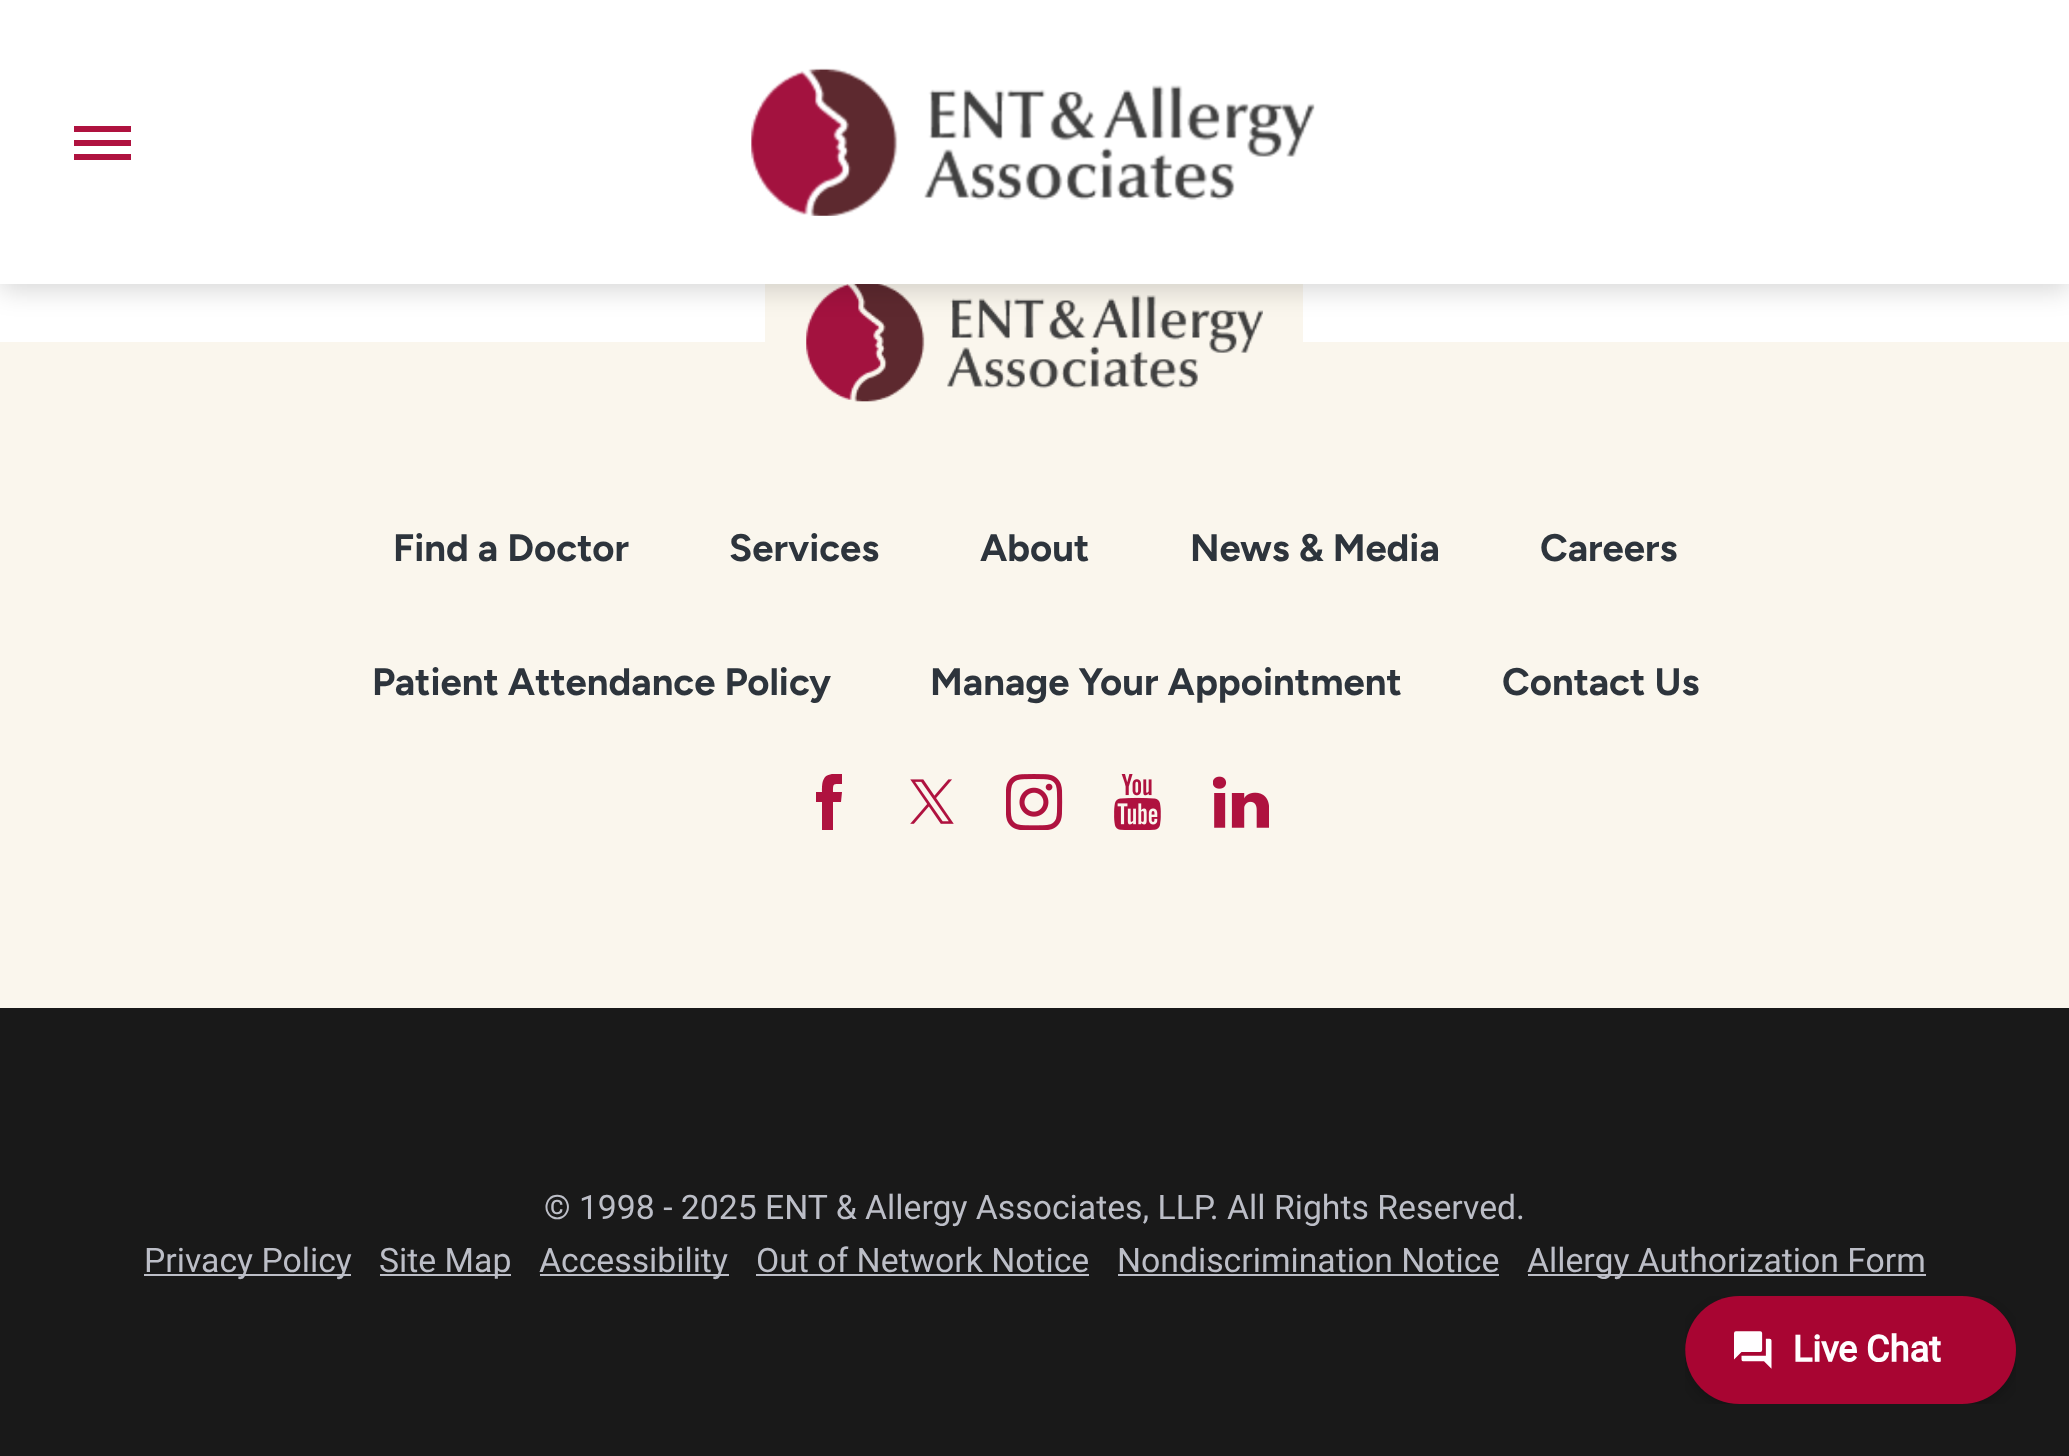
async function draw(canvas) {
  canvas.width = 2069
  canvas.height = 1456
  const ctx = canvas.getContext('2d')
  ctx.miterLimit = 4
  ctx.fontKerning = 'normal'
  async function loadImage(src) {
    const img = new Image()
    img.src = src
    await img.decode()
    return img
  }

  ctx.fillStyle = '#fff'
  ctx.fillRect(0, 0, 2069, 1456)
  ctx.fillStyle = '#faf6ed'
  ctx.fillRect(0, 342, 2069, 666)
  ctx.beginPath()
  ctx.roundRect(785.5, 261.5, 497, 159, 2.5)
  ctx.fill()
  ctx.strokeStyle = '#faf6ed'
  ctx.lineWidth = 41
  ctx.stroke()
  ctx.fillStyle = '#fff'
  ctx.fillRect(765, 241, 538, 43)
  ctx.drawImage(await loadImage('image1.png'), 806, 284, 457, 118)
  ctx.save()
  ctx.beginPath()
  ctx.moveTo(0, 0)
  ctx.lineTo(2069, 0)
  ctx.lineTo(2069, 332)
  ctx.lineTo(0, 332)
  ctx.closePath()
  ctx.moveTo(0, 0)
  ctx.lineTo(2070, 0)
  ctx.lineTo(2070, 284)
  ctx.lineTo(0, 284)
  ctx.closePath()
  ctx.clip('evenodd')
  ctx.fillStyle = '#00000029'
  ctx.filter = 'blur(13.5px)'
  ctx.beginPath()
  ctx.rect(0, 7, 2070, 283)
  ctx.fill()
  ctx.filter = 'none'
  ctx.restore()
  ctx.fillStyle = '#af123f'
  ctx.beginPath()
  ctx.moveTo(74, 126)
  ctx.lineTo(131, 126)
  ctx.lineTo(131, 132)
  ctx.lineTo(74, 132)
  ctx.closePath()
  ctx.moveTo(74, 140)
  ctx.lineTo(131, 140)
  ctx.lineTo(131, 146)
  ctx.lineTo(74, 146)
  ctx.closePath()
  ctx.moveTo(74, 154)
  ctx.lineTo(131, 154)
  ctx.lineTo(131, 160)
  ctx.lineTo(74, 160)
  ctx.closePath()
  ctx.fill()
  ctx.drawImage(await loadImage('image0.png'), 751, 68, 564, 148)
  ctx.font = 'bold 38.25px Figtree'
  ctx.fillStyle = '#2d343c'
  ctx.fillText('Find a Doctor', 393, 561)
  ctx.fillText('Services', 729, 561)
  ctx.fillText('About', 980, 561)
  ctx.fillText('News & Media', 1190, 561)
  ctx.fillText('Careers', 1540, 561)
  ctx.fillText('Patient Attendance Policy', 372, 695)
  ctx.fillText('Manage Your Appointment', 930, 695)
  ctx.fillText('Contact Us', 1502, 695)
  ctx.fillStyle = '#af123f'
  ctx.beginPath()
  ctx.moveTo(834, 774)
  ctx.bezierCurveTo(822, 774, 822, 783, 822, 792)
  ctx.lineTo(816, 792)
  ctx.lineTo(816, 802)
  ctx.lineTo(822, 802)
  ctx.lineTo(822, 830)
  ctx.lineTo(833, 830)
  ctx.lineTo(833, 802)
  ctx.lineTo(841, 802)
  ctx.lineTo(842, 792)
  ctx.lineTo(833, 792)
  ctx.bezierCurveTo(833, 783, 833, 784, 842, 784)
  ctx.lineTo(842, 774)
  ctx.closePath()
  ctx.fill()
  ctx.drawImage(await loadImage('image2.png'), 910, 779, 44, 45)
  ctx.drawImage(await loadImage('image3.png'), 1006, 774, 57, 56)
  ctx.drawImage(await loadImage('image4.png'), 1114, 774, 47, 56)
  ctx.drawImage(await loadImage('image5.png'), 1213, 776, 56, 52)
  ctx.fillStyle = '#191919'
  ctx.fillRect(0, 1008, 2069, 448)
  ctx.font = '33.75px Roboto'
  ctx.fillStyle = '#bcbec7'
  ctx.fillText('© 1998 - 2025 ENT & Allergy Associates, LLP. All Rights Reserved.', 544, 1219)
  ctx.fillRect(144, 1274, 207, 2)
  ctx.fillText('Privacy Policy', 144, 1272)
  ctx.fillRect(380, 1274, 131, 2)
  ctx.fillText('Site Map', 379, 1272)
  ctx.fillRect(540, 1274, 189, 2)
  ctx.fillText('Accessibility', 539, 1272)
  ctx.fillText('Out of Network Notice', 756, 1272)
  ctx.fillRect(756, 1274, 333, 2)
  ctx.fillText('Nondiscrimination Notice', 1117, 1272)
  ctx.fillRect(1118, 1274, 381, 2)
  ctx.fillRect(1528, 1274, 398, 2)
  ctx.fillText('Allergy Authorization Form', 1527, 1272)
  ctx.drawImage(await loadImage('image6.png'), 1685, 1296, 331, 108)
}

draw(document.querySelector('canvas'))
